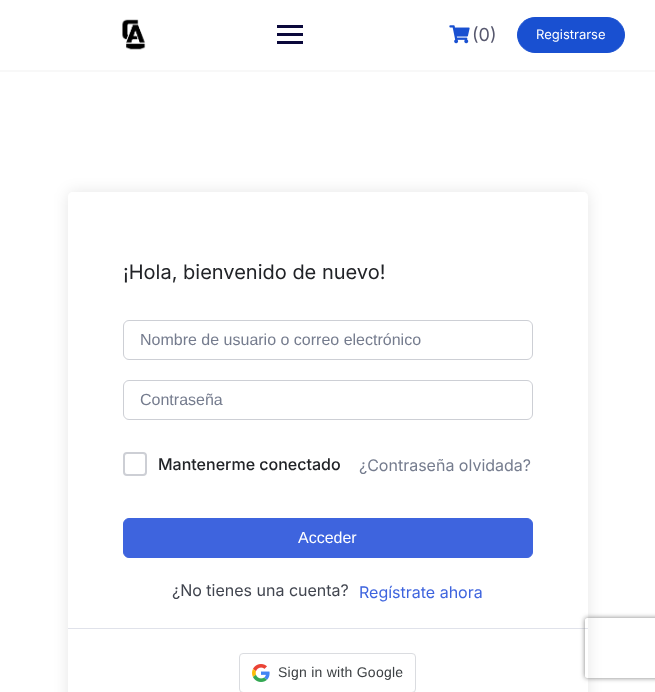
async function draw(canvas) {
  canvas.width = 655
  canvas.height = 692
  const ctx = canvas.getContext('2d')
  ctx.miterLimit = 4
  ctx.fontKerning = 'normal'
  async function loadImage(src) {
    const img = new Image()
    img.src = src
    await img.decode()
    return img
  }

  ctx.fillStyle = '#fff'
  ctx.fillRect(0, 0, 655, 692)
  ctx.fillStyle = '#f8f8f8'
  ctx.fillRect(0, 70, 655, 2)
  ctx.drawImage(await loadImage('image0.png'), 122, 19, 24, 31)
  ctx.fillStyle = '#0a083b'
  ctx.fillRect(277, 33, 26, 3)
  ctx.fillRect(277, 25, 26, 3)
  ctx.fillRect(277, 41, 26, 3)
  ctx.drawImage(await loadImage('image1.png'), 449, 25, 21, 19)
  ctx.font = '18px Inter'
  ctx.fillStyle = '#57586e'
  ctx.fillText('(0)', 472, 41)
  ctx.fillStyle = '#1950d1'
  ctx.beginPath()
  ctx.roundRect(517.5, 17.5, 107, 35, 17.5)
  ctx.fill()
  ctx.strokeStyle = '#1950d1'
  ctx.stroke()
  ctx.font = '13px Inter'
  ctx.fillStyle = '#fff'
  ctx.fillText('Registrarse', 536, 39)
  ctx.save()
  ctx.beginPath()
  ctx.moveTo(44, 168)
  ctx.lineTo(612, 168)
  ctx.lineTo(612, 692)
  ctx.lineTo(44, 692)
  ctx.closePath()
  ctx.moveTo(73, 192)
  ctx.lineTo(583, 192)
  ctx.bezierCurveTo(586, 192, 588, 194, 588, 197)
  ctx.lineTo(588, 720)
  ctx.bezierCurveTo(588, 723, 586, 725, 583, 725)
  ctx.lineTo(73, 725)
  ctx.bezierCurveTo(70, 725, 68, 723, 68, 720)
  ctx.lineTo(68, 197)
  ctx.bezierCurveTo(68, 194, 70, 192, 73, 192)
  ctx.closePath()
  ctx.clip('evenodd')
  ctx.fillStyle = '#0000001a'
  ctx.filter = 'blur(7.5px)'
  ctx.beginPath()
  ctx.roundRect(68, 192, 520, 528, 5)
  ctx.fill()
  ctx.filter = 'none'
  ctx.restore()
  ctx.font = '20px Inter'
  ctx.fillStyle = '#212327'
  ctx.fillText('¡Hola, bienvenido de nuevo!', 123, 279)
  ctx.beginPath()
  ctx.roundRect(123.5, 320.5, 409, 39, 5.5)
  ctx.strokeStyle = '#cdcfd5'
  ctx.stroke()
  ctx.font = '16px Liberation Sans'
  ctx.fillStyle = '#757c8e'
  ctx.fillText('Nombre de usuario o correo electrónico', 140, 345)
  ctx.beginPath()
  ctx.roundRect(123.5, 380.5, 409, 39, 5.5)
  ctx.stroke()
  ctx.fillText('Contraseña', 140, 405)
  ctx.beginPath()
  ctx.roundRect(124, 453, 22, 22, 3)
  ctx.lineWidth = 2
  ctx.stroke()
  ctx.font = '500 16px Inter'
  ctx.fillStyle = '#212327'
  ctx.fillText('Mantenerme conectado', 158, 470)
  ctx.font = '16px Inter'
  ctx.fillStyle = '#757c8e'
  ctx.fillText('¿Contraseña olvidada?', 359, 471)
  ctx.fillStyle = '#3e64de'
  ctx.beginPath()
  ctx.roundRect(123.5, 518.5, 409, 39, 5.5)
  ctx.fill()
  ctx.strokeStyle = '#3e64de'
  ctx.lineWidth = 1
  ctx.stroke()
  ctx.font = '16px Liberation Sans'
  ctx.fillStyle = '#fff'
  ctx.fillText('Acceder', 298, 543)
  ctx.font = '16px Inter'
  ctx.fillStyle = '#41454f'
  ctx.fillText('¿No tienes una cuenta?', 172, 596)
  ctx.fillStyle = '#3e64de'
  ctx.fillText('Regístrate ahora', 359, 598)
  ctx.fillStyle = '#e0e2ea'
  ctx.fillRect(68, 628, 520, 1)
  ctx.beginPath()
  ctx.roundRect(239.5, 653.5, 176, 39, 3.5)
  ctx.strokeStyle = '#dadce0'
  ctx.stroke()
  ctx.drawImage(await loadImage('image2.png'), 252, 664, 18, 18)
  ctx.letterSpacing = '0.25px'
  ctx.font = '14px Liberation Sans'
  ctx.fillStyle = '#3c4043'
  ctx.fillText('Sign in with Google', 278, 677)
  ctx.save()
  ctx.beginPath()
  ctx.moveTo(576, 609)
  ctx.lineTo(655, 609)
  ctx.lineTo(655, 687)
  ctx.lineTo(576, 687)
  ctx.closePath()
  ctx.moveTo(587, 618)
  ctx.lineTo(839, 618)
  ctx.bezierCurveTo(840, 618, 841, 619, 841, 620)
  ctx.lineTo(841, 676)
  ctx.bezierCurveTo(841, 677, 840, 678, 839, 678)
  ctx.lineTo(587, 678)
  ctx.bezierCurveTo(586, 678, 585, 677, 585, 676)
  ctx.lineTo(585, 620)
  ctx.bezierCurveTo(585, 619, 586, 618, 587, 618)
  ctx.closePath()
  ctx.clip('evenodd')
  ctx.fillStyle = '#808080'
  ctx.filter = 'blur(2.5px)'
  ctx.beginPath()
  ctx.roundRect(585, 618, 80, 60, 2)
  ctx.fill()
  ctx.filter = 'none'
  ctx.restore()
}

draw(document.querySelector('canvas'))
